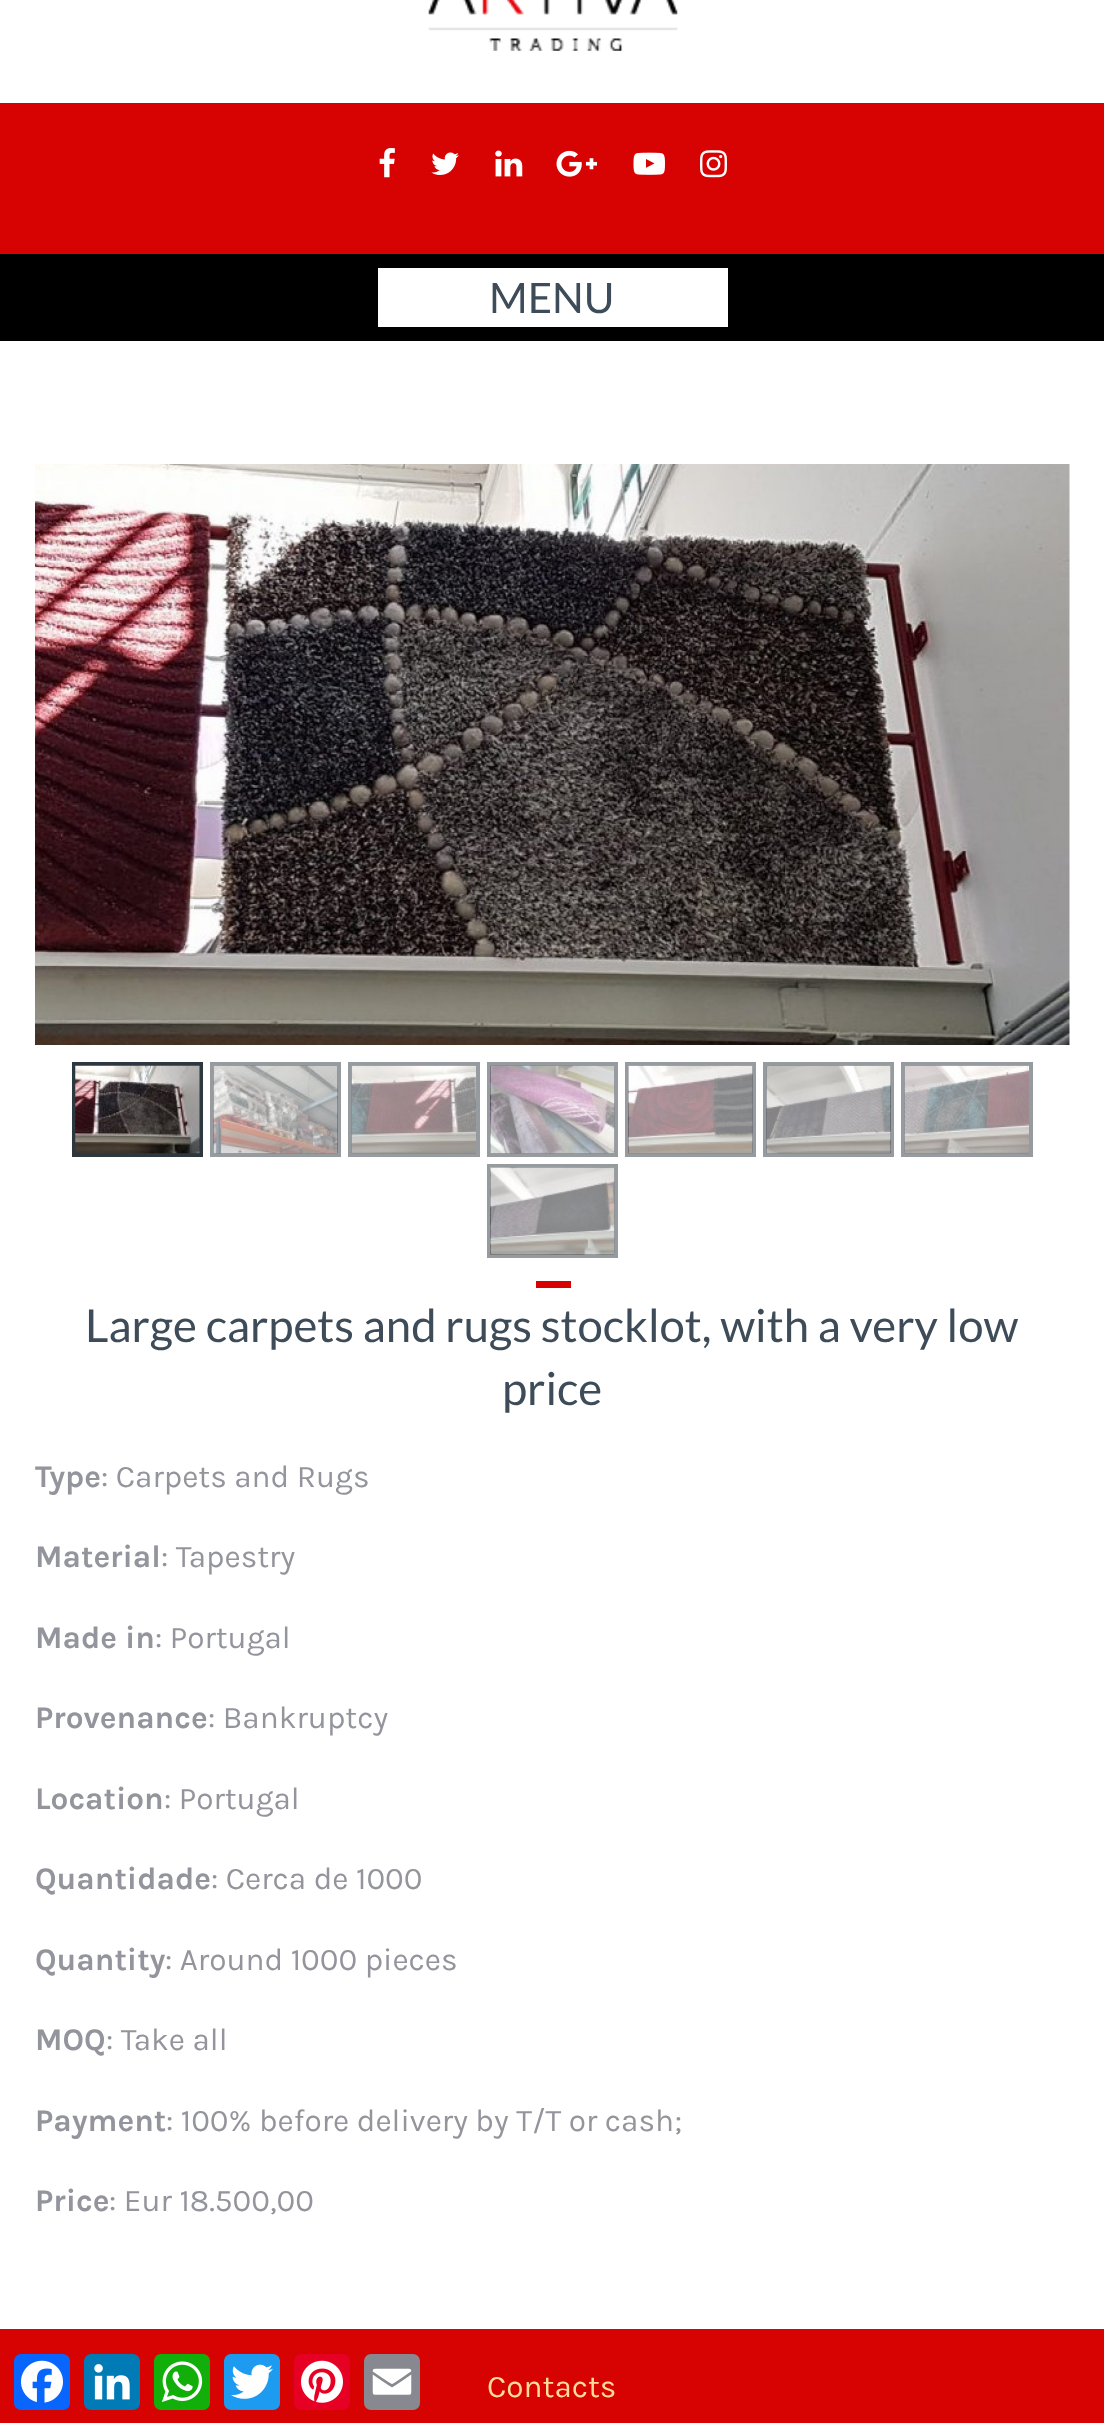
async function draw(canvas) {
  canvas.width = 1104
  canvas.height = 2423
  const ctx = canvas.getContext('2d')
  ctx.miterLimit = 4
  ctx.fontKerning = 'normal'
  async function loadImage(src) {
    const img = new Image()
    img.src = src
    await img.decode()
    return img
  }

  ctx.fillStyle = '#fff'
  ctx.fillRect(0, 0, 1104, 2423)
  ctx.fillStyle = '#000'
  ctx.fillRect(0, 254, 1104, 87)
  ctx.drawImage(await loadImage('image0.png'), 428, 0, 250, 51)
  ctx.fillStyle = '#d70202'
  ctx.fillRect(0, 103, 1104, 151)
  ctx.drawImage(await loadImage('image1.png'), 379, 148, 16, 30)
  ctx.drawImage(await loadImage('image2.png'), 431, 152, 28, 23)
  ctx.drawImage(await loadImage('image3.png'), 495, 150, 28, 27)
  ctx.drawImage(await loadImage('image4.png'), 556, 150, 41, 27)
  ctx.drawImage(await loadImage('image5.png'), 633, 152, 32, 23)
  ctx.drawImage(await loadImage('image6.png'), 700, 150, 27, 28)
  ctx.fillStyle = '#fff'
  ctx.fillRect(378, 268, 350, 59)
  ctx.font = '42px Lato'
  ctx.fillStyle = '#3d4c58'
  ctx.fillText('MENU', 489, 313)
  ctx.drawImage(await loadImage('image7.png'), 35, 464, 1035, 581)
  ctx.strokeStyle = '#2c3740'
  ctx.lineWidth = 4
  ctx.strokeRect(74, 1064, 127, 91)
  ctx.drawImage(await loadImage('image8.png'), 75, 1065, 125, 89)
  ctx.strokeStyle = '#969ba0'
  ctx.strokeRect(212, 1064, 127, 91)
  ctx.drawImage(await loadImage('image9.png'), 213, 1065, 125, 89)
  ctx.strokeRect(350, 1064, 128, 91)
  ctx.drawImage(await loadImage('image10.png'), 351, 1065, 125, 89)
  ctx.strokeRect(489, 1064, 127, 91)
  ctx.drawImage(await loadImage('image11.png'), 490, 1065, 125, 89)
  ctx.strokeRect(627, 1064, 127, 91)
  ctx.drawImage(await loadImage('image12.png'), 628, 1065, 125, 89)
  ctx.strokeRect(765, 1064, 127, 91)
  ctx.drawImage(await loadImage('image13.png'), 766, 1065, 125, 89)
  ctx.strokeRect(903, 1064, 128, 91)
  ctx.drawImage(await loadImage('image14.png'), 904, 1065, 125, 89)
  ctx.strokeRect(489, 1166, 127, 90)
  ctx.drawImage(await loadImage('image15.png'), 490, 1167, 125, 88)
  ctx.fillStyle = '#d70202'
  ctx.fillRect(536, 1281, 35, 7)
  ctx.font = '45.5px Lato'
  ctx.fillStyle = '#3d4c58'
  ctx.fillText('Large carpets and rugs stocklot, with a very low', 85, 1342)
  ctx.fillText('price', 502, 1405)
  ctx.font = 'bold 31.5px Karla'
  ctx.fillStyle = '#94949d'
  ctx.fillText('Type', 35, 1487)
  ctx.font = '31.5px Karla'
  ctx.fillText(': Carpets and Rugs', 101, 1487)
  ctx.font = 'bold 31.5px Karla'
  ctx.fillText('Material', 35, 1567)
  ctx.font = '31.5px Karla'
  ctx.fillText(': Tapestry', 161, 1567)
  ctx.font = 'bold 31.5px Karla'
  ctx.fillText('Made in', 35, 1648)
  ctx.font = '31.5px Karla'
  ctx.fillText(': Portugal', 155, 1648)
  ctx.font = 'bold 31.5px Karla'
  ctx.fillText('Provenance', 35, 1728)
  ctx.font = '31.5px Karla'
  ctx.fillText(': Bankruptcy', 208, 1728)
  ctx.font = 'bold 31.5px Karla'
  ctx.fillText('Location', 35, 1809)
  ctx.font = '31.5px Karla'
  ctx.fillText(': Portugal', 164, 1809)
  ctx.font = 'bold 31.5px Karla'
  ctx.fillText('Quantidade', 35, 1889)
  ctx.font = '31.5px Karla'
  ctx.fillText(': Cerca de 1000', 211, 1889)
  ctx.font = 'bold 31.5px Karla'
  ctx.fillText('Quantity', 35, 1970)
  ctx.font = '31.5px Karla'
  ctx.fillText(': Around 1000 pieces', 165, 1970)
  ctx.font = 'bold 31.5px Karla'
  ctx.fillText('MOQ', 35, 2050)
  ctx.font = '31.5px Karla'
  ctx.fillText(': Take all', 106, 2050)
  ctx.font = 'bold 31.5px Karla'
  ctx.fillText('Payment', 35, 2131)
  ctx.font = '31.5px Karla'
  ctx.fillText(': 100% before delivery by T/T or cash;', 166, 2131)
  ctx.font = 'bold 31.5px Karla'
  ctx.fillText('Price', 35, 2211)
  ctx.font = '31.5px Karla'
  ctx.fillText(': Eur 18.500,00', 109, 2211)
  ctx.fillStyle = '#d70202'
  ctx.fillRect(0, 2329, 1104, 94)
  ctx.fillStyle = '#ffdd98'
  ctx.fillText('Contacts', 487, 2397)
  ctx.fillStyle = '#0866ff'
  ctx.beginPath()
  ctx.roundRect(14, 2354, 56, 56, 7)
  ctx.fill()
  ctx.drawImage(await loadImage('image16.png'), 21, 2360, 42, 43)
  ctx.fillStyle = '#007bb5'
  ctx.beginPath()
  ctx.roundRect(84, 2354, 56, 56, 7)
  ctx.fill()
  ctx.drawImage(await loadImage('image17.png'), 94, 2364, 36, 36)
  ctx.fillStyle = '#12af0a'
  ctx.beginPath()
  ctx.roundRect(154, 2354, 56, 56, 7)
  ctx.fill()
  ctx.drawImage(await loadImage('image18.png'), 162, 2361, 41, 41)
  ctx.fillStyle = '#1d9bf0'
  ctx.beginPath()
  ctx.roundRect(224, 2354, 56, 56, 7)
  ctx.fill()
  ctx.drawImage(await loadImage('image19.png'), 231, 2364, 42, 35)
  ctx.fillStyle = '#e60023'
  ctx.beginPath()
  ctx.roundRect(294, 2354, 56, 56, 7)
  ctx.fill()
  ctx.drawImage(await loadImage('image20.png'), 301, 2360, 42, 43)
  ctx.fillStyle = '#888990'
  ctx.beginPath()
  ctx.roundRect(364, 2354, 56, 56, 7)
  ctx.fill()
  ctx.drawImage(await loadImage('image21.png'), 372, 2368, 40, 27)
}

draw(document.querySelector('canvas'))
